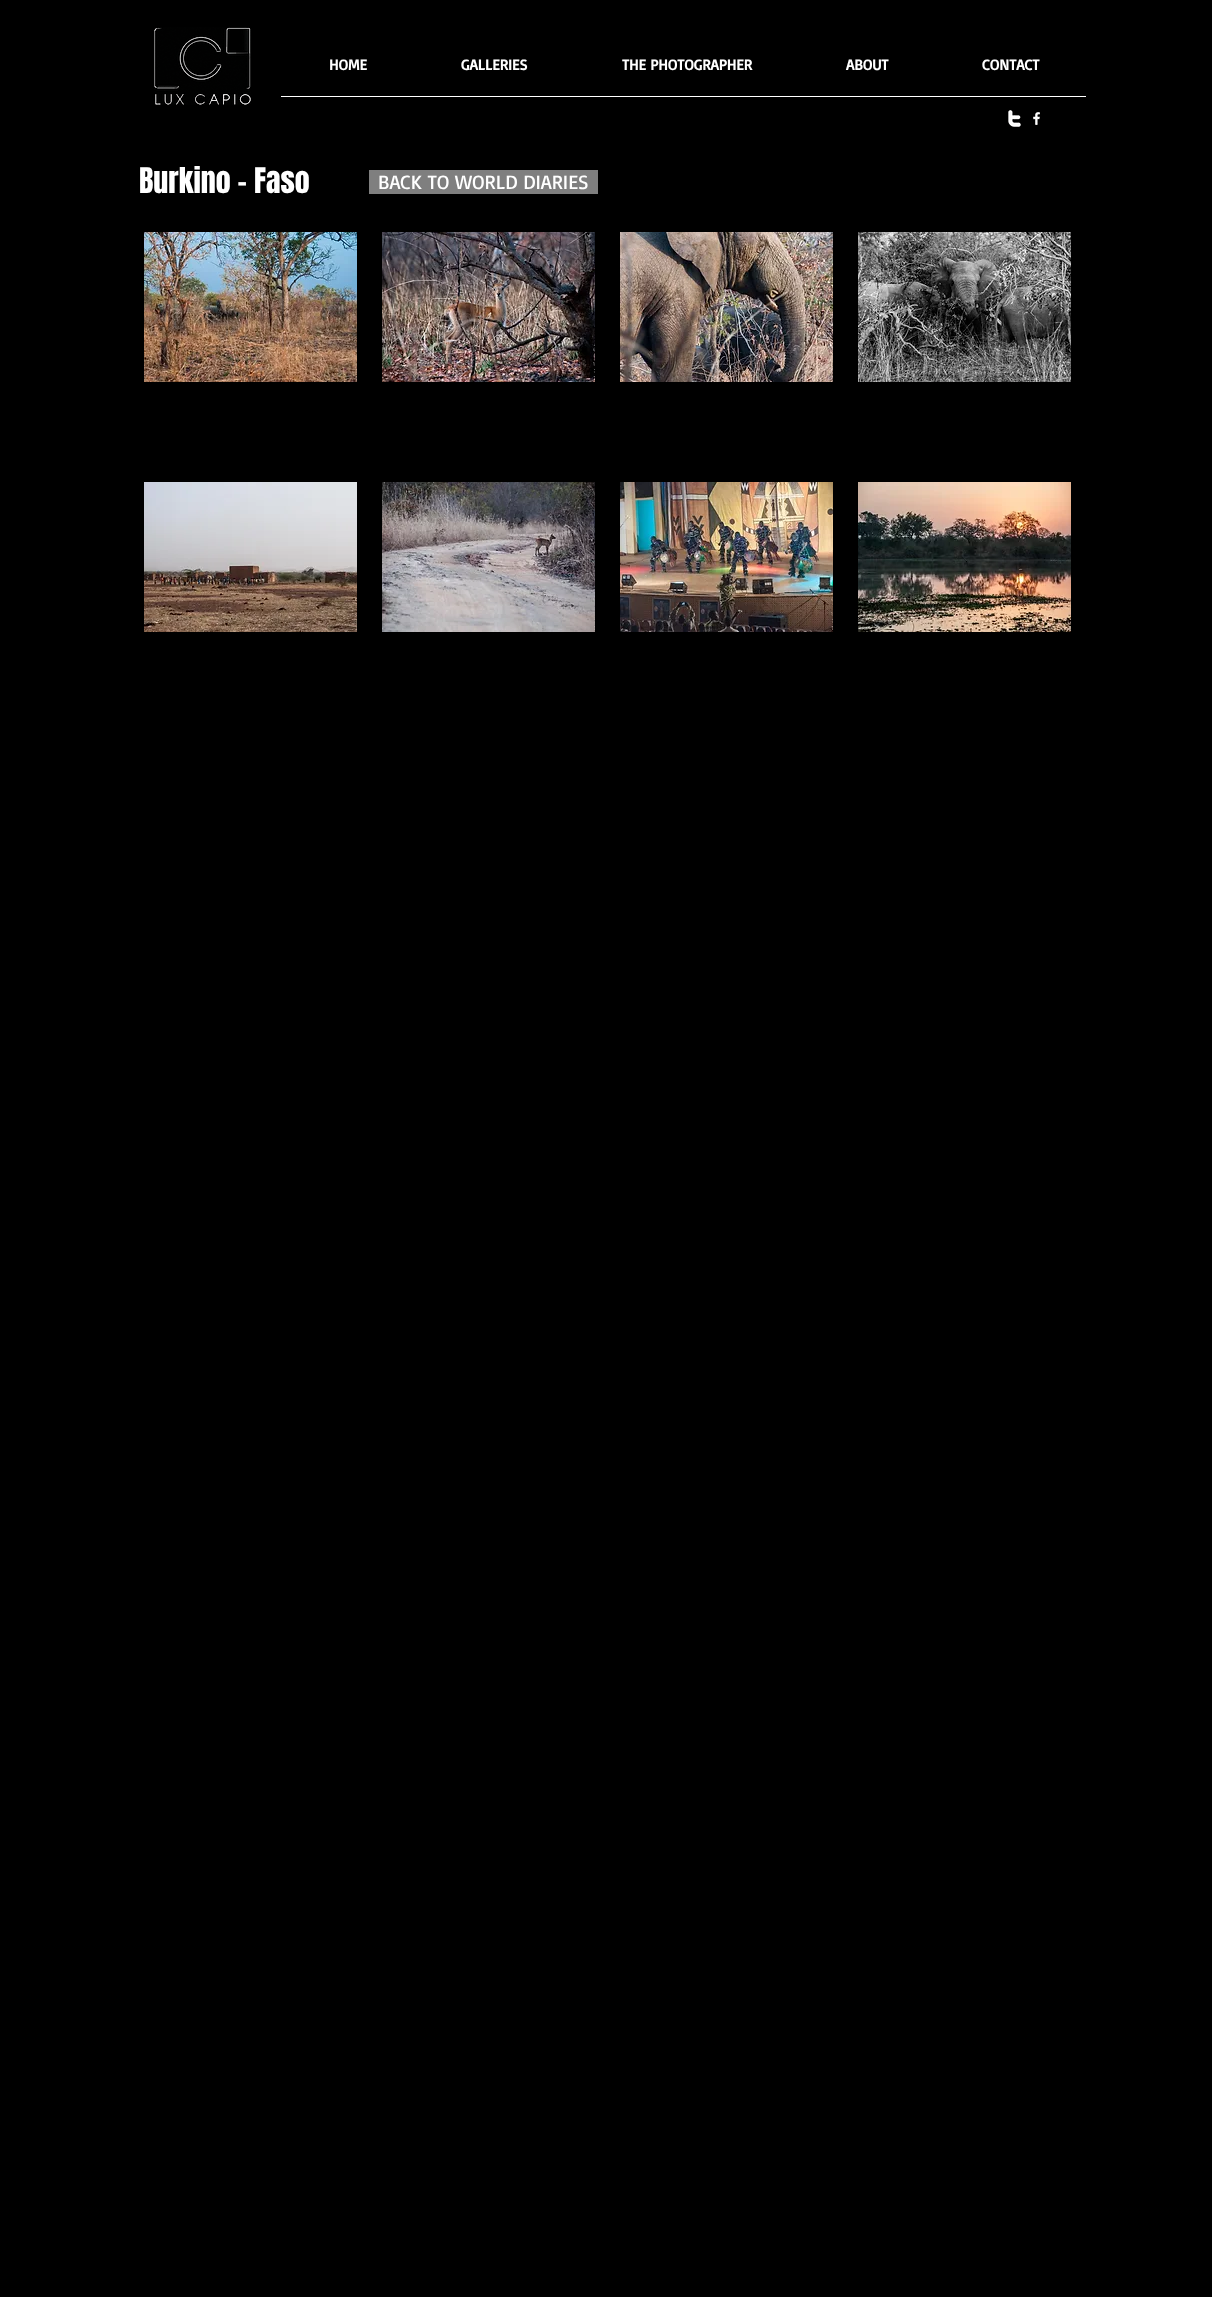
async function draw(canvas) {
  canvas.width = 1212
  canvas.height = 2297
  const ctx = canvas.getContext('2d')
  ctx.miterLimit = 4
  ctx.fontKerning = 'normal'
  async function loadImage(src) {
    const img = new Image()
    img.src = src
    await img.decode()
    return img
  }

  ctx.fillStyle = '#000'
  ctx.fillRect(0, 0, 1212, 2297)
  ctx.drawImage(await loadImage('image0.png'), 154, 27, 97, 78)
  ctx.font = 'bold 15px Basic'
  ctx.fillStyle = '#fff'
  ctx.fillText('HOME', 329, 70)
  ctx.fillText('GALLERIES', 461, 70)
  ctx.fillText('THE PHOTOGRAPHER', 622, 70)
  ctx.fillText('ABOUT', 846, 70)
  ctx.fillText('CONTACT', 982, 70)
  ctx.fillRect(281, 96, 805, 1)
  ctx.drawImage(await loadImage('image1.png'), 1008, 110, 13, 17)
  ctx.drawImage(await loadImage('image2.png'), 1033, 112, 7, 13)
  ctx.font = '30px Anton'
  ctx.fillText('Burkino - Faso', 139, 193)
  ctx.fillStyle = '#7f7f7f'
  ctx.fillRect(369, 170, 229, 24)
  ctx.font = '20px Basic'
  ctx.fillStyle = '#fff'
  ctx.fillText('BACK TO WORLD DIARIES', 378, 189)
  ctx.drawImage(await loadImage('image3.png'), 144, 232, 213, 150)
  ctx.drawImage(await loadImage('image4.png'), 382, 232, 213, 150)
  ctx.drawImage(await loadImage('image5.png'), 620, 232, 213, 150)
  ctx.drawImage(await loadImage('image6.png'), 858, 232, 213, 150)
  ctx.drawImage(await loadImage('image7.png'), 144, 482, 213, 150)
  ctx.drawImage(await loadImage('image8.png'), 382, 482, 213, 150)
  ctx.drawImage(await loadImage('image9.png'), 620, 482, 213, 150)
  ctx.drawImage(await loadImage('image10.png'), 858, 482, 213, 150)
}

draw(document.querySelector('canvas'))
